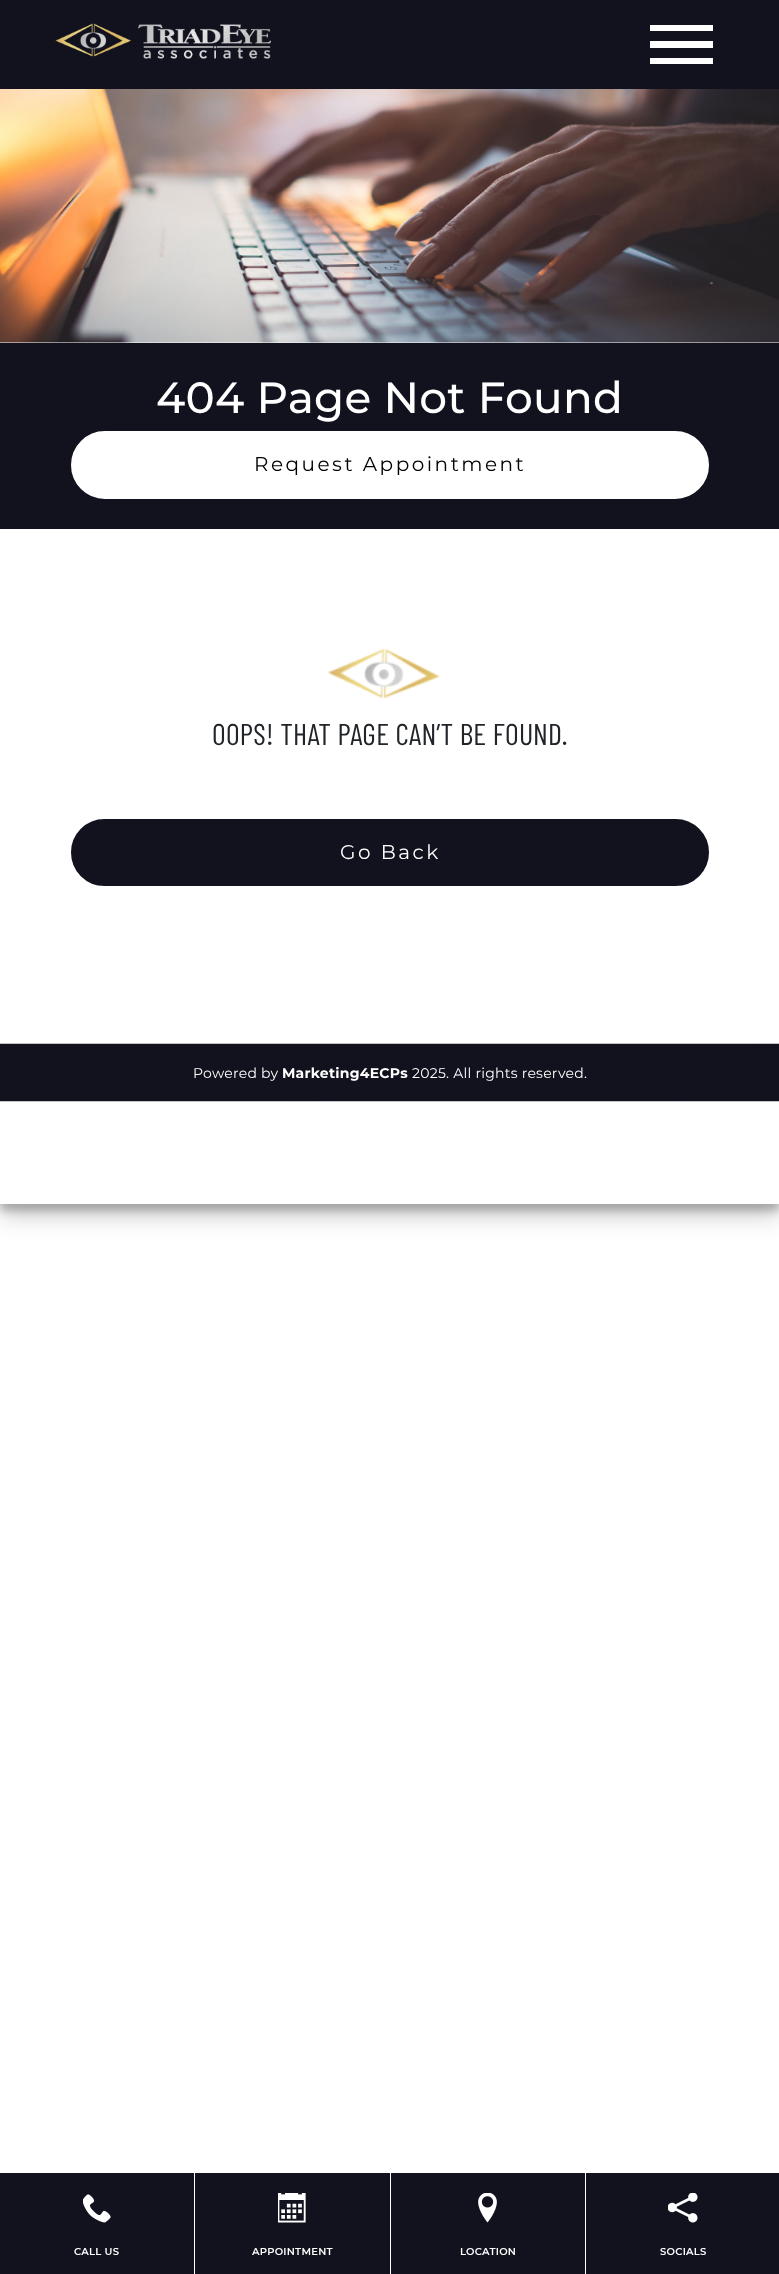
async function draw(canvas) {
  canvas.width = 779
  canvas.height = 2274
  const ctx = canvas.getContext('2d')
  ctx.miterLimit = 4
  ctx.fontKerning = 'normal'
  async function loadImage(src) {
    const img = new Image()
    img.src = src
    await img.decode()
    return img
  }

  ctx.fillStyle = '#fff'
  ctx.fillRect(0, 0, 779, 2274)
  ctx.save()
  ctx.beginPath()
  ctx.moveTo(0, 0)
  ctx.lineTo(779, 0)
  ctx.lineTo(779, 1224)
  ctx.lineTo(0, 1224)
  ctx.closePath()
  ctx.moveTo(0, 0)
  ctx.lineTo(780, 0)
  ctx.lineTo(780, 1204)
  ctx.lineTo(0, 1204)
  ctx.closePath()
  ctx.clip('evenodd')
  ctx.fillStyle = '#0000003b'
  ctx.filter = 'blur(4px)'
  ctx.beginPath()
  ctx.rect(0, 8, 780, 1203)
  ctx.fill()
  ctx.filter = 'none'
  ctx.restore()
  ctx.save()
  ctx.beginPath()
  ctx.moveTo(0, 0)
  ctx.lineTo(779, 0)
  ctx.lineTo(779, 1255)
  ctx.lineTo(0, 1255)
  ctx.closePath()
  ctx.moveTo(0, 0)
  ctx.lineTo(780, 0)
  ctx.lineTo(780, 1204)
  ctx.lineTo(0, 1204)
  ctx.closePath()
  ctx.clip('evenodd')
  ctx.fillStyle = '#00000030'
  ctx.filter = 'blur(12.5px)'
  ctx.beginPath()
  ctx.rect(0, 13, 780, 1203)
  ctx.fill()
  ctx.filter = 'none'
  ctx.restore()
  ctx.fillStyle = '#12121f'
  ctx.fillRect(0, 0, 779, 89)
  ctx.drawImage(await loadImage('image0.png'), 55, 23, 216, 36)
  ctx.fillStyle = '#fff'
  ctx.fillRect(650, 25, 63, 6)
  ctx.fillRect(650, 41, 63, 7)
  ctx.fillRect(650, 58, 63, 6)
  ctx.drawImage(await loadImage('image1.png'), 0, 89, 779, 254)
  ctx.fillStyle = '#12121f'
  ctx.fillRect(0, 343, 779, 186)
  ctx.letterSpacing = '0.25px'
  ctx.font = '500 43.75px Montserrat'
  ctx.fillStyle = '#fff'
  ctx.fillText('404 Page Not Found', 156, 413)
  ctx.beginPath()
  ctx.roundRect(73, 433, 634, 64, 32)
  ctx.fill()
  ctx.strokeStyle = '#fff'
  ctx.lineWidth = 4
  ctx.stroke()
  ctx.letterSpacing = '2.5px'
  ctx.font = '100 20px Montserrat'
  ctx.fillStyle = '#000'
  ctx.fillText('Request Appointment', 254, 471)
  ctx.drawImage(await loadImage('image2.png'), 327, 648, 113, 51)
  ctx.letterSpacing = '0.25px'
  ctx.font = '30px Barlow Condensed'
  ctx.fillStyle = '#212529'
  ctx.fillText('OOPS! THAT PAGE CAN’T BE FOUND.', 212, 745)
  ctx.fillStyle = '#12121f'
  ctx.beginPath()
  ctx.roundRect(73, 821, 634, 63, 31.5)
  ctx.fill()
  ctx.strokeStyle = '#12121f'
  ctx.stroke()
  ctx.letterSpacing = '2.5px'
  ctx.font = '100 20px Montserrat'
  ctx.fillStyle = '#fff'
  ctx.fillText('Go Back', 340, 859)
  ctx.drawImage(await loadImage('image3.png'), 0, 1043, 779, 59)
  ctx.fillStyle = '#12121f'
  ctx.fillRect(0, 1044, 779, 57)
  ctx.letterSpacing = '0.25px'
  ctx.font = '100 14px Montserrat'
  ctx.fillStyle = '#fff'
  ctx.fillText('Powered by', 193, 1078)
  ctx.font = 'bold 14px Montserrat'
  ctx.fillText('Marketing4ECPs', 282, 1078)
  ctx.font = '100 14px Montserrat'
  ctx.fillText('2025. All rights reserved.', 412, 1078)
  ctx.fillStyle = '#12121f'
  ctx.fillRect(0, 2173, 779, 101)
  ctx.fillStyle = '#fff'
  ctx.fillRect(194, 2173, 1, 101)
  ctx.drawImage(await loadImage('image4.png'), 83, 2194, 28, 29)
  ctx.font = '600 10px Montserrat'
  ctx.fillText('CALL US', 74, 2255)
  ctx.fillRect(390, 2173, 1, 101)
  ctx.drawImage(await loadImage('image5.png'), 278, 2193, 28, 30)
  ctx.fillText('APPOINTMENT', 252, 2255)
  ctx.fillRect(585, 2173, 1, 101)
  ctx.drawImage(await loadImage('image6.png'), 478, 2193, 19, 30)
  ctx.fillText('LOCATION', 460, 2255)
  ctx.drawImage(await loadImage('image7.png'), 668, 2193, 30, 30)
  ctx.fillText('SOCIALS', 660, 2255)
}

draw(document.querySelector('canvas'))
